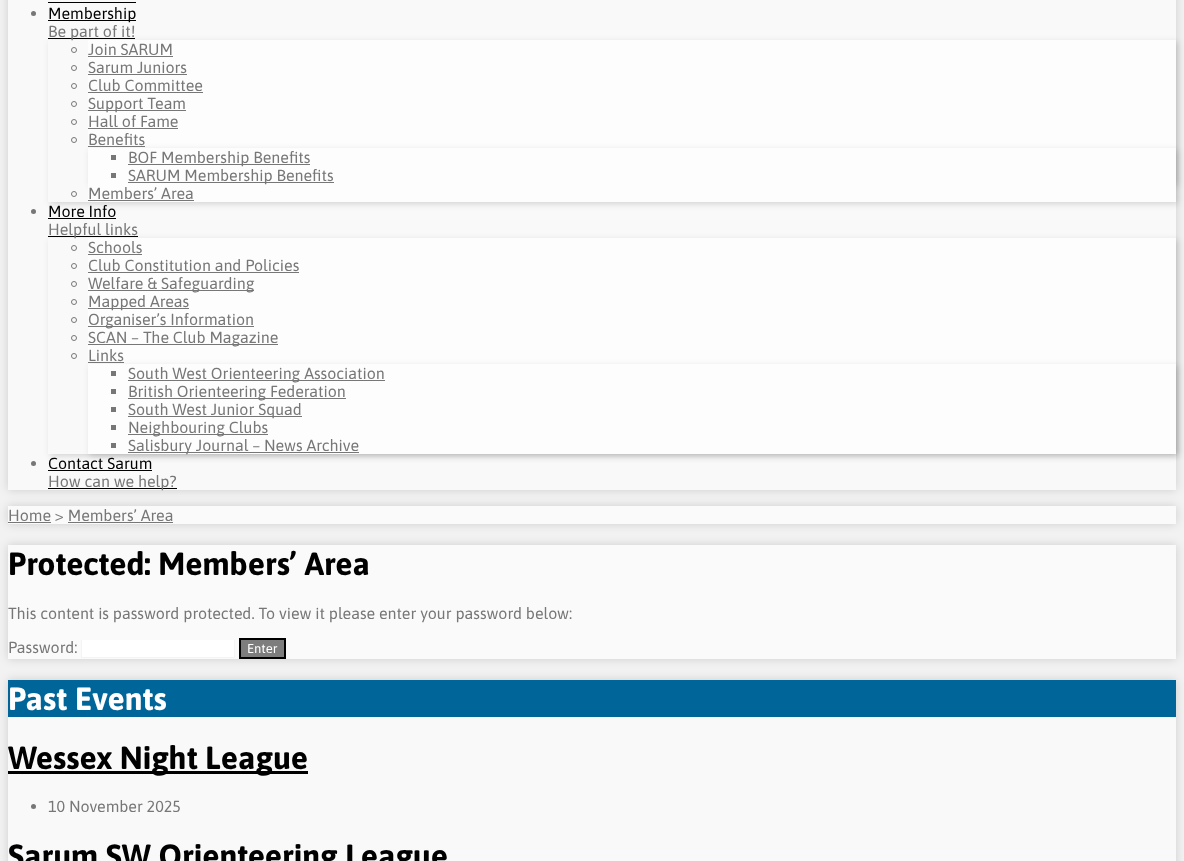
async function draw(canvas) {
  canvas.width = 1184
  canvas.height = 861
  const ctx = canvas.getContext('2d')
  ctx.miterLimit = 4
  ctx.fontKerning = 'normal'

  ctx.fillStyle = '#f2f2f2'
  ctx.fillRect(0, 0, 1184, 861)
  ctx.fillStyle = '#00000026'
  ctx.filter = 'blur(5px)'
  ctx.beginPath()
  ctx.rect(8, -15, 1168, 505)
  ctx.fill()
  ctx.filter = 'none'
  ctx.fillStyle = '#f9f9f9'
  ctx.fillRect(8, 0, 1168, 490)
  ctx.fillStyle = '#000'
  ctx.fillRect(48, 2, 88, 1)
  ctx.fillStyle = '#777'
  ctx.beginPath()
  ctx.arc(33.5, 13.5, 2.5, 0, 2 * Math.PI)
  ctx.fill()
  ctx.fillStyle = '#000'
  ctx.fillRect(48, 20, 88, 1)
  ctx.font = '16px Asap'
  ctx.fillText('Membership', 48, 19)
  ctx.save()
  ctx.beginPath()
  ctx.moveTo(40, 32)
  ctx.lineTo(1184, 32)
  ctx.lineTo(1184, 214)
  ctx.lineTo(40, 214)
  ctx.closePath()
  ctx.moveTo(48, 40)
  ctx.lineTo(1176, 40)
  ctx.lineTo(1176, 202)
  ctx.lineTo(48, 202)
  ctx.closePath()
  ctx.clip('evenodd')
  ctx.fillStyle = '#00000026'
  ctx.filter = 'blur(3px)'
  ctx.beginPath()
  ctx.rect(50, 42, 1128, 162)
  ctx.fill()
  ctx.filter = 'none'
  ctx.restore()
  ctx.fillRect(48, 38, 87, 1)
  ctx.fillStyle = '#fdfdfd'
  ctx.fillRect(88, 40, 1088, 144)
  ctx.fillStyle = '#777'
  ctx.fillText('Be part of it!', 48, 37)
  ctx.beginPath()
  ctx.arc(74, 50, 2.5, 0, 2 * Math.PI)
  ctx.strokeStyle = '#777'
  ctx.stroke()
  ctx.fillText('Join SARUM', 88, 55)
  ctx.fillRect(88, 56, 85, 1)
  ctx.beginPath()
  ctx.arc(74, 68, 2.5, 0, 2 * Math.PI)
  ctx.stroke()
  ctx.fillText('Sarum Juniors', 88, 73)
  ctx.fillRect(88, 74, 99, 1)
  ctx.beginPath()
  ctx.arc(74, 86, 2.5, 0, 2 * Math.PI)
  ctx.stroke()
  ctx.fillText('Club Committee', 88, 91)
  ctx.fillRect(88, 92, 115, 1)
  ctx.beginPath()
  ctx.arc(74, 104, 2.5, 0, 2 * Math.PI)
  ctx.stroke()
  ctx.fillRect(88, 110, 98, 1)
  ctx.fillText('Support Team', 88, 109)
  ctx.beginPath()
  ctx.arc(74, 122, 2.5, 0, 2 * Math.PI)
  ctx.stroke()
  ctx.fillText('Hall of Fame', 88, 127)
  ctx.fillRect(88, 128, 90, 1)
  ctx.beginPath()
  ctx.arc(74, 140, 2.5, 0, 2 * Math.PI)
  ctx.stroke()
  ctx.save()
  ctx.beginPath()
  ctx.moveTo(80, 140)
  ctx.lineTo(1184, 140)
  ctx.lineTo(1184, 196)
  ctx.lineTo(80, 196)
  ctx.closePath()
  ctx.moveTo(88, 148)
  ctx.lineTo(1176, 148)
  ctx.lineTo(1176, 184)
  ctx.lineTo(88, 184)
  ctx.closePath()
  ctx.clip('evenodd')
  ctx.fillStyle = '#00000026'
  ctx.filter = 'blur(3px)'
  ctx.beginPath()
  ctx.rect(90, 150, 1088, 36)
  ctx.fill()
  ctx.filter = 'none'
  ctx.restore()
  ctx.fillText('Benefits', 88, 145)
  ctx.fillRect(88, 146, 57, 1)
  ctx.fillRect(111, 155, 5, 5)
  ctx.fillRect(128, 164, 182, 1)
  ctx.fillText('BOF Membership Benefits', 128, 163)
  ctx.fillRect(111, 173, 5, 5)
  ctx.fillRect(128, 182, 206, 1)
  ctx.fillStyle = '#fdfdfd'
  ctx.fillRect(88, 184, 1088, 18)
  ctx.fillStyle = '#777'
  ctx.fillText('SARUM Membership Benefits', 128, 181)
  ctx.beginPath()
  ctx.arc(74, 194, 2.5, 0, 2 * Math.PI)
  ctx.stroke()
  ctx.fillText('Members’ Area', 88, 199)
  ctx.fillRect(88, 200, 106, 1)
  ctx.beginPath()
  ctx.arc(33.5, 211.5, 2.5, 0, 2 * Math.PI)
  ctx.fill()
  ctx.fillStyle = '#000'
  ctx.fillText('More Info', 48, 217)
  ctx.fillRect(48, 218, 68, 1)
  ctx.save()
  ctx.beginPath()
  ctx.moveTo(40, 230)
  ctx.lineTo(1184, 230)
  ctx.lineTo(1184, 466)
  ctx.lineTo(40, 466)
  ctx.closePath()
  ctx.moveTo(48, 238)
  ctx.lineTo(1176, 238)
  ctx.lineTo(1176, 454)
  ctx.lineTo(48, 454)
  ctx.closePath()
  ctx.clip('evenodd')
  ctx.fillStyle = '#00000026'
  ctx.filter = 'blur(3px)'
  ctx.beginPath()
  ctx.rect(50, 240, 1128, 216)
  ctx.fill()
  ctx.filter = 'none'
  ctx.restore()
  ctx.fillRect(48, 236, 90, 1)
  ctx.fillStyle = '#fdfdfd'
  ctx.fillRect(88, 238, 1088, 216)
  ctx.fillStyle = '#777'
  ctx.fillText('Helpful links', 48, 235)
  ctx.beginPath()
  ctx.arc(74, 248, 2.5, 0, 2 * Math.PI)
  ctx.stroke()
  ctx.fillText('Schools', 88, 253)
  ctx.fillRect(88, 254, 54, 1)
  ctx.beginPath()
  ctx.arc(74, 266, 2.5, 0, 2 * Math.PI)
  ctx.stroke()
  ctx.fillText('Club Constitution and Policies', 88, 271)
  ctx.fillRect(88, 272, 211, 1)
  ctx.beginPath()
  ctx.arc(74, 284, 2.5, 0, 2 * Math.PI)
  ctx.stroke()
  ctx.fillRect(88, 290, 166, 1)
  ctx.fillText('Welfare & Safeguarding', 88, 289)
  ctx.beginPath()
  ctx.arc(74, 302, 2.5, 0, 2 * Math.PI)
  ctx.stroke()
  ctx.fillRect(88, 308, 101, 1)
  ctx.fillText('Mapped Areas', 88, 307)
  ctx.beginPath()
  ctx.arc(74, 320, 2.5, 0, 2 * Math.PI)
  ctx.stroke()
  ctx.fillRect(88, 326, 166, 1)
  ctx.fillText('Organiser’s Information', 88, 325)
  ctx.beginPath()
  ctx.arc(74, 338, 2.5, 0, 2 * Math.PI)
  ctx.stroke()
  ctx.fillRect(88, 344, 190, 1)
  ctx.fillText('SCAN – The Club Magazine', 88, 343)
  ctx.beginPath()
  ctx.arc(74, 356, 2.5, 0, 2 * Math.PI)
  ctx.stroke()
  ctx.save()
  ctx.beginPath()
  ctx.moveTo(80, 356)
  ctx.lineTo(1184, 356)
  ctx.lineTo(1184, 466)
  ctx.lineTo(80, 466)
  ctx.closePath()
  ctx.moveTo(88, 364)
  ctx.lineTo(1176, 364)
  ctx.lineTo(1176, 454)
  ctx.lineTo(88, 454)
  ctx.closePath()
  ctx.clip('evenodd')
  ctx.fillStyle = '#00000026'
  ctx.filter = 'blur(3px)'
  ctx.beginPath()
  ctx.rect(90, 366, 1088, 90)
  ctx.fill()
  ctx.filter = 'none'
  ctx.restore()
  ctx.fillText('Links', 88, 361)
  ctx.fillRect(88, 362, 36, 1)
  ctx.fillRect(111, 371, 5, 5)
  ctx.fillRect(128, 380, 257, 1)
  ctx.fillText('South West Orienteering Association', 128, 379)
  ctx.fillRect(111, 389, 5, 5)
  ctx.fillRect(128, 398, 218, 1)
  ctx.fillText('British Orienteering Federation', 128, 397)
  ctx.fillRect(111, 407, 5, 5)
  ctx.fillRect(128, 416, 174, 1)
  ctx.fillText('South West Junior Squad', 128, 415)
  ctx.fillRect(111, 425, 5, 5)
  ctx.fillRect(128, 434, 140, 1)
  ctx.fillText('Neighbouring Clubs', 128, 433)
  ctx.fillRect(111, 443, 5, 5)
  ctx.fillRect(128, 452, 231, 1)
  ctx.fillText('Salisbury Journal – News Archive', 128, 451)
  ctx.beginPath()
  ctx.arc(33.5, 463.5, 2.5, 0, 2 * Math.PI)
  ctx.fill()
  ctx.fillStyle = '#000'
  ctx.fillText('Contact Sarum', 48, 469)
  ctx.fillRect(48, 470, 104, 1)
  ctx.fillRect(48, 488, 129, 1)
  ctx.fillStyle = '#00000026'
  ctx.filter = 'blur(5px)'
  ctx.beginPath()
  ctx.rect(8, 506, 1168, 18)
  ctx.fill()
  ctx.filter = 'none'
  ctx.fillStyle = '#777'
  ctx.fillText('How can we help?', 48, 487)
  ctx.fillStyle = '#fafafa'
  ctx.fillRect(8, 506, 1168, 18)
  ctx.fillStyle = '#777'
  ctx.fillText('Home > Members’ Area', 8, 521)
  ctx.fillRect(8, 522, 43, 1)
  ctx.fillRect(68, 522, 105, 1)
  ctx.fillStyle = '#00000026'
  ctx.filter = 'blur(5px)'
  ctx.beginPath()
  ctx.rect(8, 545, 1168, 114)
  ctx.fill()
  ctx.filter = 'none'
  ctx.fillStyle = '#fafafa'
  ctx.fillRect(8, 545, 1168, 114)
  ctx.font = 'bold 32px Asap'
  ctx.fillStyle = '#000'
  ctx.fillText('Protected: Members’ Area', 8, 575)
  ctx.font = '16px Asap'
  ctx.fillStyle = '#777'
  ctx.fillText('This content is password protected. To view it please enter your password below:', 8, 619)
  ctx.fillText('Password:', 8, 653)
  ctx.fillStyle = '#fff'
  ctx.fillRect(81, 640, 154, 18)
  ctx.fillStyle = '#f5f5f5'
  ctx.beginPath()
  ctx.moveTo(235, 640)
  ctx.lineTo(235, 658)
  ctx.lineTo(234, 657)
  ctx.lineTo(234, 640)
  ctx.closePath()
  ctx.fill()
  ctx.fillStyle = '#9696961a'
  ctx.beginPath()
  ctx.moveTo(235, 658)
  ctx.lineTo(81, 658)
  ctx.lineTo(82, 657)
  ctx.lineTo(234, 657)
  ctx.closePath()
  ctx.fill()
  ctx.beginPath()
  ctx.moveTo(81, 658)
  ctx.lineTo(81, 640)
  ctx.lineTo(82, 640)
  ctx.lineTo(82, 657)
  ctx.closePath()
  ctx.fill()
  ctx.fillStyle = '#7d7d7d'
  ctx.beginPath()
  ctx.rect(240, 639, 45, 19)
  ctx.fill()
  ctx.strokeStyle = '#000'
  ctx.lineWidth = 2
  ctx.stroke()
  ctx.font = '13px Asap'
  ctx.fillStyle = '#fff'
  ctx.fillText('Enter', 247, 653)
  ctx.fillStyle = '#00000026'
  ctx.filter = 'blur(5px)'
  ctx.beginPath()
  ctx.rect(8, 680, 1168, 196)
  ctx.fill()
  ctx.filter = 'none'
  ctx.fillStyle = '#f9f9f9'
  ctx.fillRect(8, 717, 1168, 144)
  ctx.fillStyle = '#069'
  ctx.fillRect(8, 680, 1168, 37)
  ctx.font = 'bold 32px Asap'
  ctx.fillStyle = '#fff'
  ctx.fillText('Past Events', 8, 710)
  ctx.fillStyle = '#000'
  ctx.fillRect(8, 771, 300, 3)
  ctx.fillText('Wessex Night League', 8, 769)
  ctx.fillStyle = '#777'
  ctx.beginPath()
  ctx.arc(33.5, 806.5, 2.5, 0, 2 * Math.PI)
  ctx.fill()
  ctx.font = '16px Asap'
  ctx.fillText('10 November 2025', 48, 812)
  ctx.font = 'bold 32px Asap'
  ctx.fillStyle = '#000'
  ctx.fillText('Sarum SW Orienteering League', 8, 867)
}

draw(document.querySelector('canvas'))
